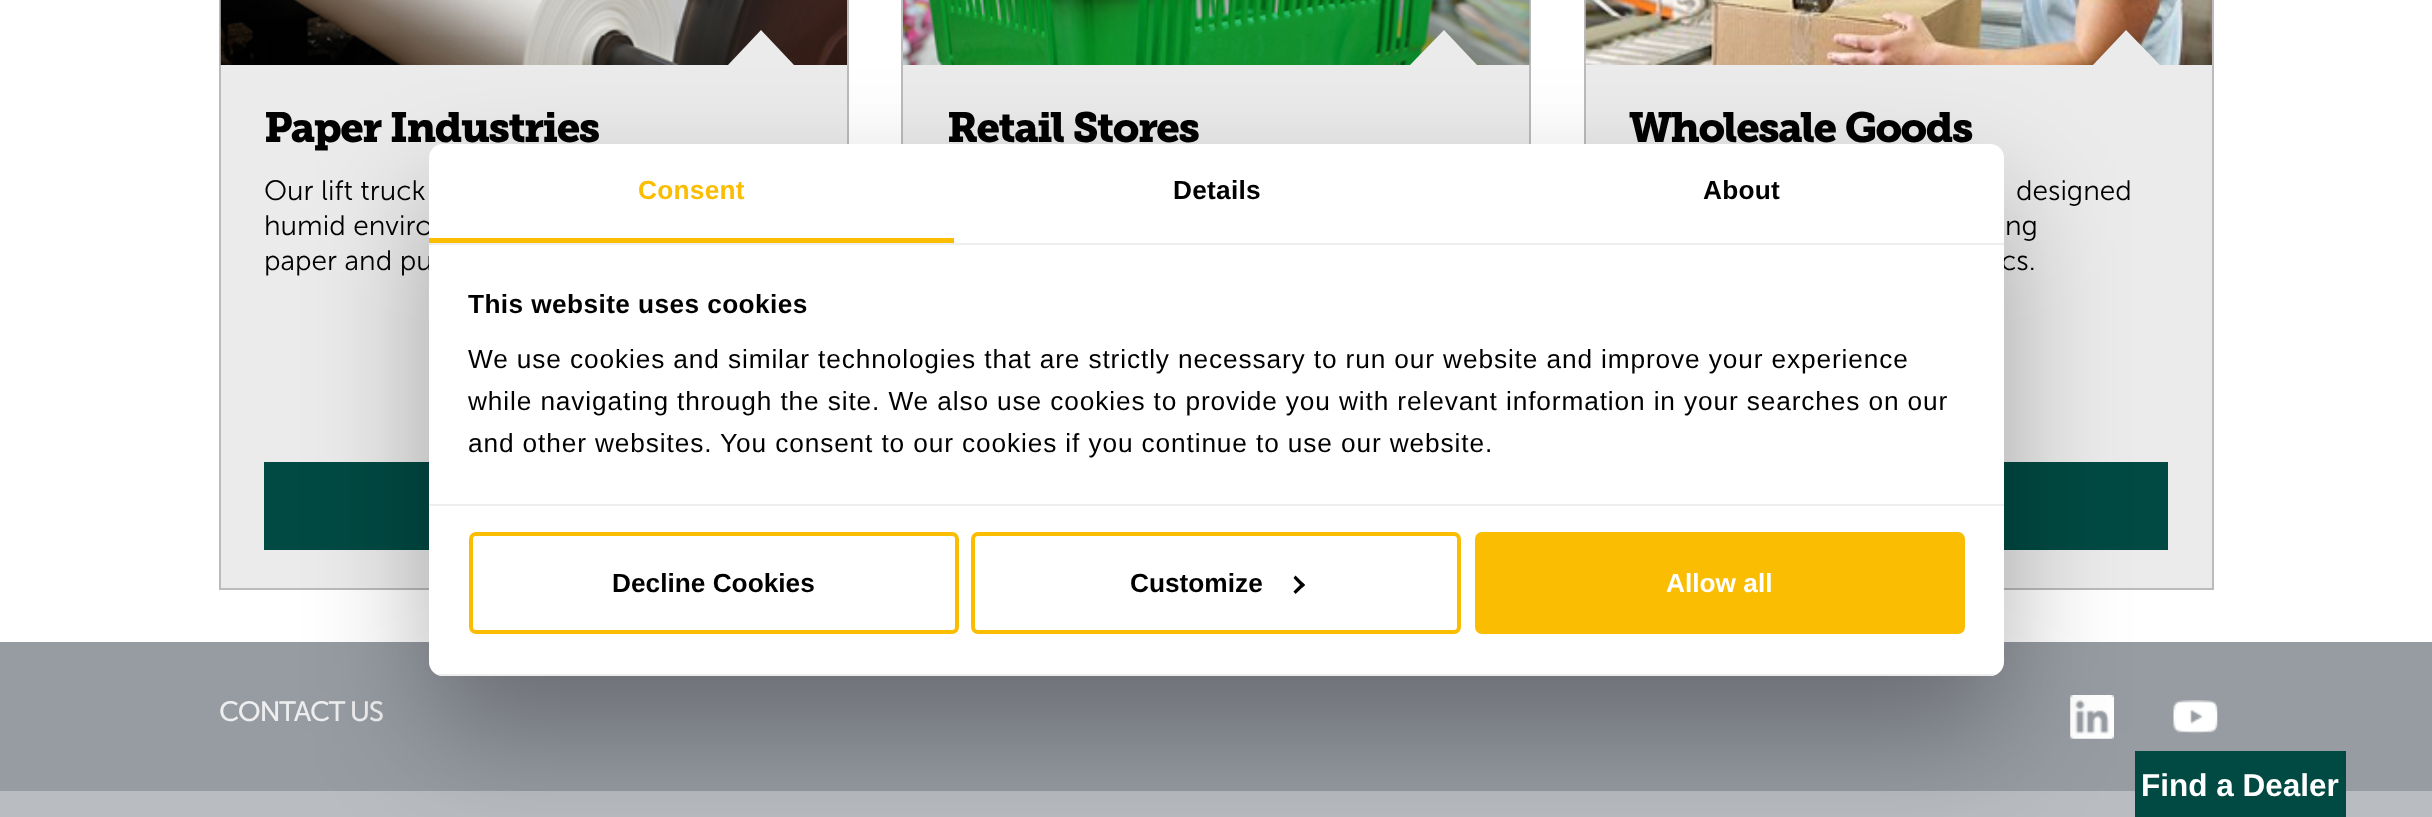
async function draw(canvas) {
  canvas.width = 2432
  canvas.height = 817
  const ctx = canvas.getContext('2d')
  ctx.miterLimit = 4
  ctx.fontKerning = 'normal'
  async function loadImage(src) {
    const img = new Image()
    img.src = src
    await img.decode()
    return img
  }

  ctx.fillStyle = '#fff'
  ctx.fillRect(0, 0, 2432, 817)
  ctx.fillStyle = '#ebebec'
  ctx.fillRect(221, 65, 626, 523)
  ctx.strokeStyle = '#bbb'
  ctx.lineWidth = 2
  ctx.strokeRect(220, -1, 628, 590)
  ctx.drawImage(await loadImage('image0.png'), 220, 0, 627, 65)
  ctx.beginPath()
  ctx.moveTo(794, 65)
  ctx.lineTo(728, 65)
  ctx.lineTo(761, 30)
  ctx.closePath()
  ctx.fill()
  ctx.letterSpacing = '-1.5px'
  ctx.font = '800 42px "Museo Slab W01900"'
  ctx.fillStyle = '#000'
  ctx.fillText('Paper Industries', 264, 142)
  ctx.letterSpacing = '0px'
  ctx.font = '300 28px "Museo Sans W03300"'
  ctx.fillText('Our lift truck', 264, 200)
  ctx.fillText('humid enviro', 264, 235)
  ctx.fillText('paper and pu', 264, 270)
  ctx.fillStyle = '#004a43'
  ctx.fillRect(264, 462, 165, 88)
  ctx.fillStyle = '#ebebec'
  ctx.fillRect(903, 65, 626, 79)
  ctx.strokeRect(902, -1, 628, 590)
  ctx.drawImage(await loadImage('image1.png'), 903, 0, 627, 65)
  ctx.beginPath()
  ctx.moveTo(1477, 65)
  ctx.lineTo(1410, 65)
  ctx.lineTo(1444, 30)
  ctx.closePath()
  ctx.fill()
  ctx.letterSpacing = '-1.5px'
  ctx.font = '800 42px "Museo Slab W01900"'
  ctx.fillStyle = '#000'
  ctx.fillText('Retail Stores', 947, 142)
  ctx.fillStyle = '#ebebec'
  ctx.fillRect(1586, 65, 626, 523)
  ctx.strokeRect(1585, -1, 628, 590)
  ctx.drawImage(await loadImage('image2.png'), 1585, 0, 627, 65)
  ctx.beginPath()
  ctx.moveTo(2160, 65)
  ctx.lineTo(2093, 65)
  ctx.lineTo(2126, 30)
  ctx.closePath()
  ctx.fill()
  ctx.fillStyle = '#000'
  ctx.fillText('Wholesale Goods', 1629, 142)
  ctx.letterSpacing = '0px'
  ctx.font = '300 28px "Museo Sans W03300"'
  ctx.fillText('designed', 2016, 200)
  ctx.fillText('ng', 2005, 235)
  ctx.fillText('cs.', 2001, 270)
  ctx.fillStyle = '#004a43'
  ctx.fillRect(2004, 462, 164, 88)
  ctx.fillStyle = '#b9bdc1'
  ctx.fillRect(0, 791, 2432, 26)
  ctx.fillStyle = '#979ca3'
  ctx.fillRect(0, 642, 2432, 149)
  ctx.letterSpacing = '-1.4px'
  ctx.font = '28px "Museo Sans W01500"'
  ctx.fillStyle = '#eee'
  ctx.fillText('CONTACT US', 219, 721)
  ctx.drawImage(await loadImage('image3.png'), 2070, 695, 44, 44)
  ctx.drawImage(await loadImage('image4.png'), 2173, 700, 45, 34)
  ctx.fillStyle = '#004a43'
  ctx.fillRect(2135, 751, 211, 66)
  ctx.letterSpacing = '0px'
  ctx.font = 'bold 31.5px Liberation Sans'
  ctx.fillStyle = '#fff'
  ctx.fillText('Find a Dealer', 2141, 796)
  ctx.fillStyle = '#0000004d'
  ctx.filter = 'blur(59.5px)'
  ctx.beginPath()
  ctx.roundRect(429, 200, 1575, 532, 14)
  ctx.fill()
  ctx.filter = 'none'
  ctx.fillStyle = '#fff'
  ctx.beginPath()
  ctx.roundRect(429, 144, 1575, 532, 14)
  ctx.fill()
  ctx.fillStyle = '#eee'
  ctx.fillRect(429, 243, 1575, 2)
  ctx.fillStyle = '#fabd01'
  ctx.fillRect(429, 238, 525, 5)
  ctx.letterSpacing = '0.25px'
  ctx.font = 'bold 26.25px Liberation Sans'
  ctx.fillText('Consent', 638, 199)
  ctx.fillStyle = '#000'
  ctx.fillText('Details', 1173, 199)
  ctx.fillText('About', 1703, 199)
  ctx.fillStyle = '#eee'
  ctx.fillRect(429, 504, 1575, 2)
  ctx.letterSpacing = '0.4px'
  ctx.fillStyle = '#000'
  ctx.fillText('This website uses cookies', 468, 313)
  ctx.letterSpacing = '0.88px'
  ctx.font = '26.25px Liberation Sans'
  ctx.fillText('We use cookies and similar technologies that are strictly necessary to run our website and improve your experience', 468, 368)
  ctx.fillText('while navigating through the site. We also use cookies to provide you with relevant information in your searches on our', 468, 410)
  ctx.fillText('and other websites. You consent to our cookies if you continue to use our website.', 468, 452)
  ctx.save()
  ctx.beginPath()
  ctx.roundRect(429, 144, 1575, 532, 14)
  ctx.clip()
  ctx.fillStyle = '#eee'
  ctx.fillRect(429, 674, 1575, 2)
  ctx.restore()
  ctx.beginPath()
  ctx.roundRect(471, 534, 486, 98, 5)
  ctx.strokeStyle = '#fabd01'
  ctx.lineWidth = 4
  ctx.stroke()
  ctx.letterSpacing = '0px'
  ctx.font = 'bold 26.25px Liberation Sans'
  ctx.fillText('Decline Cookies', 612, 592)
  ctx.beginPath()
  ctx.roundRect(973, 534, 486, 98, 5)
  ctx.stroke()
  ctx.fillText('Customize', 1130, 592)
  ctx.beginPath()
  ctx.moveTo(1295.5, 575.5)
  ctx.lineTo(1305, 585)
  ctx.lineTo(1302.5, 587.5)
  ctx.lineTo(1293.5, 578)
  ctx.closePath()
  ctx.fill()
  ctx.beginPath()
  ctx.moveTo(1302.5, 582.5)
  ctx.lineTo(1305, 585)
  ctx.lineTo(1295.5, 594)
  ctx.lineTo(1293.5, 591.5)
  ctx.closePath()
  ctx.fill()
  ctx.fillStyle = '#fabd01'
  ctx.beginPath()
  ctx.roundRect(1477, 534, 486, 98, 5)
  ctx.fill()
  ctx.stroke()
  ctx.fillStyle = '#fff'
  ctx.fillText('Allow all', 1666, 592)
}

draw(document.querySelector('canvas'))
